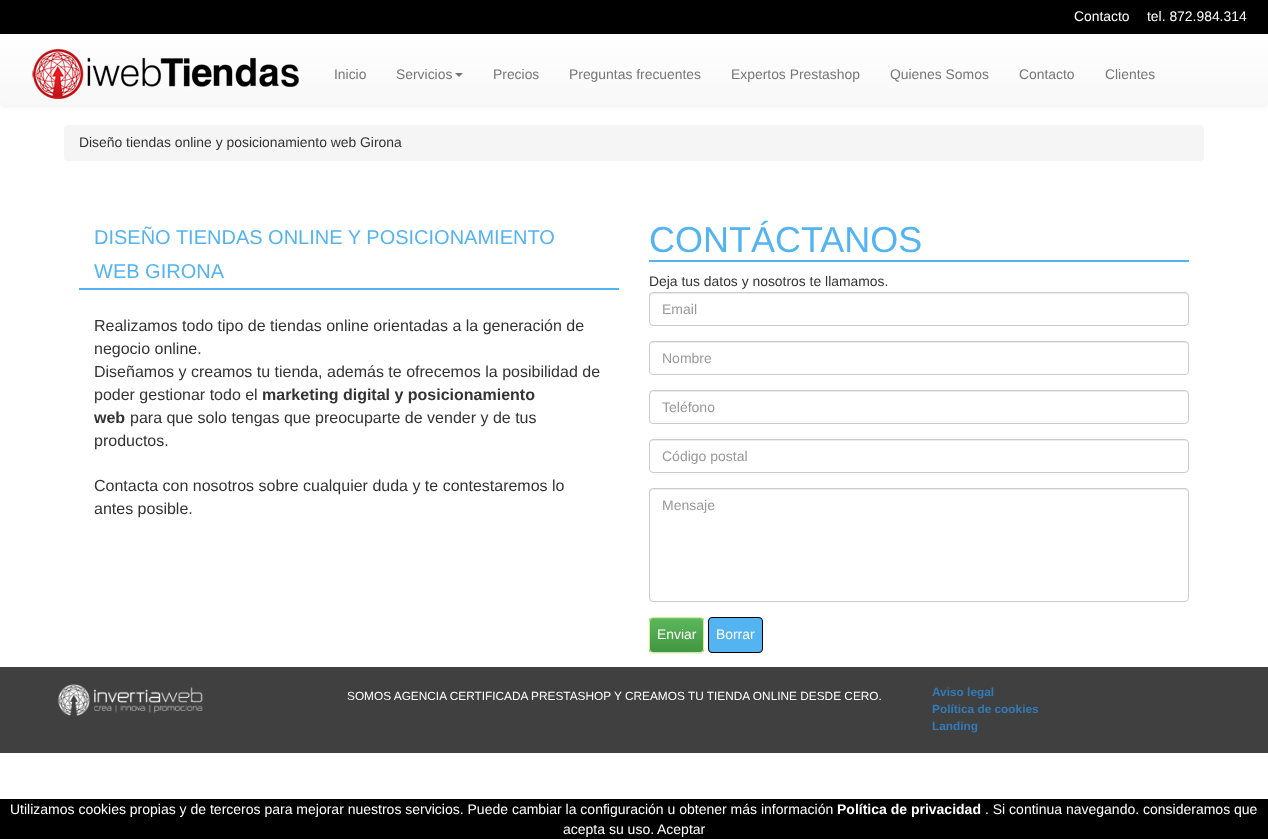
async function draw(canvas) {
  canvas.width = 1268
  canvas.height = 839
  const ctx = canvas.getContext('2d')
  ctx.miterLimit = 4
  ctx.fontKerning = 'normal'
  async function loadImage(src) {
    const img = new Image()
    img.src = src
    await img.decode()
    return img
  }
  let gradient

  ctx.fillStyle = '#fff'
  ctx.fillRect(0, 0, 1268, 839)
  ctx.fillStyle = '#000'
  ctx.fillRect(0, 0, 1268, 34)
  ctx.font = '13.9px Liberation Sans'
  ctx.fillStyle = '#fff'
  ctx.fillText('Contacto', 1074, 21)
  ctx.fillText('tel. 872.984.314', 1147, 21)
  ctx.fillStyle = '#00000012'
  ctx.filter = 'blur(2.5px)'
  ctx.beginPath()
  ctx.roundRect(0, 35, 1268, 71, 4)
  ctx.fill()
  ctx.filter = 'none'
  gradient = ctx.createLinearGradient(634, 34, 634, 105)
  gradient.addColorStop(0, '#fff')
  gradient.addColorStop(1, '#f8f8f8')
  ctx.fillStyle = gradient
  ctx.beginPath()
  ctx.roundRect(0, 34, 1268, 71, 4)
  ctx.fill()
  ctx.drawImage(await loadImage('image0.png'), 32, 49, 267, 50)
  ctx.fillStyle = '#777'
  ctx.fillText('Inicio', 334, 79)
  ctx.fillText('Servicios', 396, 79)
  ctx.beginPath()
  ctx.moveTo(455, 73)
  ctx.lineTo(463, 73)
  ctx.lineTo(459, 77)
  ctx.closePath()
  ctx.fill()
  ctx.fillText('Precios', 493, 79)
  ctx.fillText('Preguntas frecuentes', 569, 79)
  ctx.fillText('Expertos Prestashop', 731, 79)
  ctx.fillText('Quienes Somos', 890, 79)
  ctx.fillText('Contacto', 1019, 79)
  ctx.fillText('Clientes', 1105, 79)
  ctx.fillStyle = '#f5f5f5'
  ctx.beginPath()
  ctx.roundRect(64, 125, 1140, 36, 4)
  ctx.fill()
  ctx.fillStyle = '#333'
  ctx.fillText('Diseño tiendas online y posicionamiento web Girona', 79, 147)
  ctx.fillStyle = '#54b4f2'
  ctx.fillRect(79, 288, 540, 2)
  ctx.font = '20px Liberation Sans'
  ctx.fillText('DISEÑO TIENDAS ONLINE Y POSICIONAMIENTO', 94, 244)
  ctx.fillText('WEB GIRONA', 94, 278)
  ctx.font = '16px Liberation Sans'
  ctx.fillStyle = '#333'
  ctx.fillText('Realizamos todo tipo de tiendas online orientadas a la generación de', 94, 331)
  ctx.fillText('negocio online.', 94, 354)
  ctx.fillText('Diseñamos y creamos tu tienda, además te ofrecemos la posibilidad de', 94, 377)
  ctx.fillText('poder gestionar todo el', 94, 400)
  ctx.font = 'bold 16px Liberation Sans'
  ctx.fillText('marketing digital y posicionamiento', 262, 400)
  ctx.fillText('web', 94, 423)
  ctx.font = '16px Liberation Sans'
  ctx.fillText('para que solo tengas que preocuparte de vender y de tus', 130, 423)
  ctx.fillText('productos.', 94, 446)
  ctx.fillText('Contacta con nosotros sobre cualquier duda y te contestaremos lo', 94, 491)
  ctx.fillText('antes posible.', 94, 514)
  ctx.fillStyle = '#54b4f2'
  ctx.fillRect(649, 260, 540, 2)
  ctx.font = '36px Liberation Sans'
  ctx.fillText('CONTÁCTANOS', 649, 252)
  ctx.font = '13.9px Liberation Sans'
  ctx.fillStyle = '#333'
  ctx.fillText('Deja tus datos y nosotros te llamamos.', 649, 286)
  ctx.fillStyle = '#ececec'
  ctx.beginPath()
  ctx.moveTo(653, 294)
  ctx.lineTo(1185, 294)
  ctx.bezierCurveTo(1187, 294, 1188, 295, 1188, 297)
  ctx.lineTo(1188, 296)
  ctx.bezierCurveTo(1188, 294, 1187, 293, 1185, 293)
  ctx.lineTo(653, 293)
  ctx.bezierCurveTo(651, 293, 650, 294, 650, 296)
  ctx.lineTo(650, 297)
  ctx.bezierCurveTo(650, 295, 651, 294, 653, 294)
  ctx.closePath()
  ctx.fill()
  ctx.beginPath()
  ctx.roundRect(649.5, 292.5, 539, 33, 3.5)
  ctx.strokeStyle = '#ccc'
  ctx.stroke()
  ctx.font = '14px Liberation Sans'
  ctx.fillStyle = '#999'
  ctx.fillText('Email', 662, 314)
  ctx.fillStyle = '#ececec'
  ctx.beginPath()
  ctx.moveTo(653, 343)
  ctx.lineTo(1185, 343)
  ctx.bezierCurveTo(1187, 343, 1188, 344, 1188, 346)
  ctx.lineTo(1188, 345)
  ctx.bezierCurveTo(1188, 343, 1187, 342, 1185, 342)
  ctx.lineTo(653, 342)
  ctx.bezierCurveTo(651, 342, 650, 343, 650, 345)
  ctx.lineTo(650, 346)
  ctx.bezierCurveTo(650, 344, 651, 343, 653, 343)
  ctx.closePath()
  ctx.fill()
  ctx.beginPath()
  ctx.roundRect(649.5, 341.5, 539, 33, 3.5)
  ctx.stroke()
  ctx.fillStyle = '#999'
  ctx.fillText('Nombre', 662, 363)
  ctx.fillStyle = '#ececec'
  ctx.beginPath()
  ctx.moveTo(653, 392)
  ctx.lineTo(1185, 392)
  ctx.bezierCurveTo(1187, 392, 1188, 393, 1188, 395)
  ctx.lineTo(1188, 394)
  ctx.bezierCurveTo(1188, 392, 1187, 391, 1185, 391)
  ctx.lineTo(653, 391)
  ctx.bezierCurveTo(651, 391, 650, 392, 650, 394)
  ctx.lineTo(650, 395)
  ctx.bezierCurveTo(650, 393, 651, 392, 653, 392)
  ctx.closePath()
  ctx.fill()
  ctx.beginPath()
  ctx.roundRect(649.5, 390.5, 539, 33, 3.5)
  ctx.stroke()
  ctx.fillStyle = '#999'
  ctx.fillText('Teléfono', 662, 412)
  ctx.fillStyle = '#ececec'
  ctx.beginPath()
  ctx.moveTo(653, 441)
  ctx.lineTo(1185, 441)
  ctx.bezierCurveTo(1187, 441, 1188, 442, 1188, 444)
  ctx.lineTo(1188, 443)
  ctx.bezierCurveTo(1188, 441, 1187, 440, 1185, 440)
  ctx.lineTo(653, 440)
  ctx.bezierCurveTo(651, 440, 650, 441, 650, 443)
  ctx.lineTo(650, 444)
  ctx.bezierCurveTo(650, 442, 651, 441, 653, 441)
  ctx.closePath()
  ctx.fill()
  ctx.beginPath()
  ctx.roundRect(649.5, 439.5, 539, 33, 3.5)
  ctx.stroke()
  ctx.fillStyle = '#999'
  ctx.fillText('Código postal', 662, 461)
  ctx.fillStyle = '#ececec'
  ctx.beginPath()
  ctx.moveTo(653, 490)
  ctx.lineTo(1185, 490)
  ctx.bezierCurveTo(1187, 490, 1188, 491, 1188, 493)
  ctx.lineTo(1188, 492)
  ctx.bezierCurveTo(1188, 490, 1187, 489, 1185, 489)
  ctx.lineTo(653, 489)
  ctx.bezierCurveTo(651, 489, 650, 490, 650, 492)
  ctx.lineTo(650, 493)
  ctx.bezierCurveTo(650, 491, 651, 490, 653, 490)
  ctx.closePath()
  ctx.fill()
  ctx.beginPath()
  ctx.roundRect(649.5, 488.5, 539, 113, 3.5)
  ctx.stroke()
  ctx.fillStyle = '#999'
  ctx.fillText('Mensaje', 662, 510)
  ctx.fillStyle = '#00000012'
  ctx.filter = 'blur(0.5px)'
  ctx.beginPath()
  ctx.roundRect(649, 618, 55, 36, 4)
  ctx.fill()
  ctx.filter = 'none'
  ctx.save()
  ctx.beginPath()
  ctx.roundRect(649, 617, 55, 36, 4)
  ctx.clip()
  gradient = ctx.createLinearGradient(677, 618, 677, 652)
  gradient.addColorStop(0, '#5cb85c')
  gradient.addColorStop(1, '#419641')
  ctx.fillStyle = gradient
  ctx.fillRect(649, 618, 55, 34)
  ctx.restore()
  ctx.fillStyle = '#74c374'
  ctx.beginPath()
  ctx.moveTo(653, 619)
  ctx.lineTo(700, 619)
  ctx.bezierCurveTo(702, 619, 703, 620, 703, 622)
  ctx.bezierCurveTo(703, 616, 697, 618, 692, 618)
  ctx.lineTo(661, 618)
  ctx.bezierCurveTo(656, 618, 650, 616, 650, 622)
  ctx.bezierCurveTo(650, 620, 651, 619, 653, 619)
  ctx.closePath()
  ctx.fill()
  ctx.beginPath()
  ctx.roundRect(649.5, 617.5, 54, 35, 3.5)
  ctx.strokeStyle = '#d2ef8f'
  ctx.stroke()
  ctx.font = '13.9px Liberation Sans'
  ctx.fillStyle = '#fff'
  ctx.fillText('Enviar', 657, 639)
  ctx.fillStyle = '#54b4f2'
  ctx.beginPath()
  ctx.roundRect(708.5, 617.5, 54, 35, 3.5)
  ctx.fill()
  ctx.strokeStyle = '#000'
  ctx.stroke()
  ctx.fillStyle = '#fff'
  ctx.fillText('Borrar', 716, 639)
  ctx.fillStyle = '#404040'
  ctx.fillRect(0, 667, 1268, 86)
  ctx.drawImage(await loadImage('image1.png'), 58, 684, 145, 32)
  ctx.font = '11.85px Liberation Sans'
  ctx.fillStyle = '#fff'
  ctx.fillText('SOMOS AGENCIA CERTIFICADA PRESTASHOP Y CREAMOS TU TIENDA ONLINE DESDE CERO.', 347, 700)
  ctx.font = 'bold 11.85px Liberation Sans'
  ctx.fillStyle = '#337ab7'
  ctx.fillText('Aviso legal', 932, 696)
  ctx.fillText('Política de cookies', 932, 713)
  ctx.fillText('Landing', 932, 730)
  ctx.fillStyle = '#000'
  ctx.fillRect(0, 799, 1268, 40)
  ctx.font = '14px Liberation Sans'
  ctx.fillStyle = '#fff'
  ctx.fillText('Utilizamos cookies propias y de terceros para mejorar nuestros servicios. Puede cambiar la configuración u obtener más información', 10, 814)
  ctx.font = 'bold 14px Liberation Sans'
  ctx.fillText('Política de privacidad', 837, 814)
  ctx.font = '14px Liberation Sans'
  ctx.fillText('. Si continua navegando. consideramos que', 985, 814)
  ctx.fillText('acepta su uso.', 563, 834)
  ctx.fillText('Aceptar', 657, 834)
}

draw(document.querySelector('canvas'))
